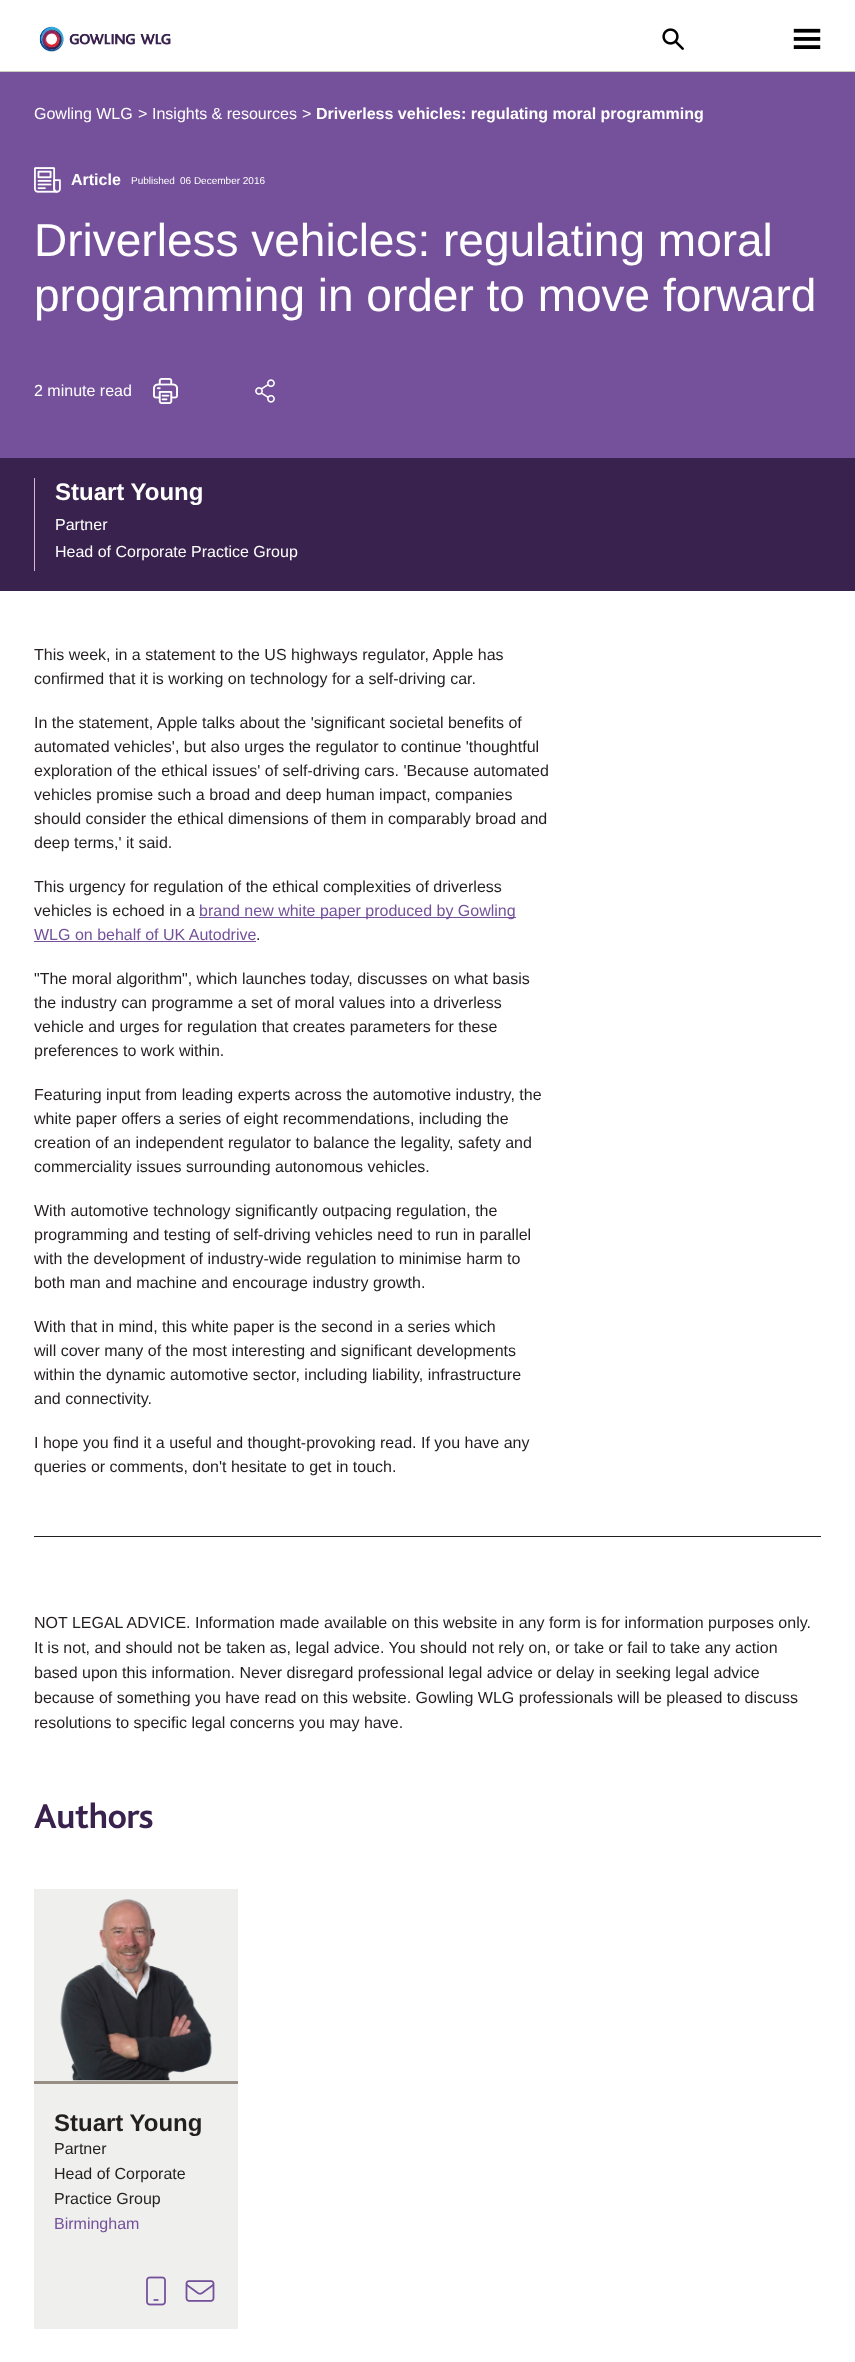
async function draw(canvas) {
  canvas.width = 855
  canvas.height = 2362
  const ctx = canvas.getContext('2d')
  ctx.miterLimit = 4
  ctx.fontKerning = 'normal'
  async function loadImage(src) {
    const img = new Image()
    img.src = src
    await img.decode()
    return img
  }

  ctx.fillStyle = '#fff'
  ctx.fillRect(0, 0, 855, 2362)
  ctx.fillStyle = '#cccbbc'
  ctx.fillRect(0, 71, 855, 1)
  ctx.drawImage(await loadImage('image0.png'), 39, 26, 132, 26)
  ctx.drawImage(await loadImage('image1.png'), 662, 28, 22, 22)
  ctx.drawImage(await loadImage('image2.png'), 793, 28, 28, 21)
  ctx.fillStyle = '#74519a'
  ctx.fillRect(0, 72, 855, 386)
  ctx.font = '16px Liberation Sans'
  ctx.fillStyle = '#fff'
  ctx.fillText('Gowling WLG', 34, 119)
  ctx.fillText('>', 138, 119)
  ctx.fillText('Insights & resources', 152, 119)
  ctx.fillText('>', 302, 119)
  ctx.font = 'bold 16px Liberation Sans'
  ctx.fillText('Driverless vehicles: regulating moral programming', 316, 119)
  ctx.drawImage(await loadImage('image3.png'), 34, 167, 27, 26)
  ctx.fillText('Article', 71, 185)
  ctx.font = '10px Liberation Sans'
  ctx.fillText('Published', 131, 184)
  ctx.fillText('06 December 2016', 180, 184)
  ctx.font = '46px Liberation Sans'
  ctx.fillText('Driverless vehicles: regulating moral', 34, 256)
  ctx.fillText('programming in order to move forward', 34, 311)
  ctx.font = '16px Liberation Sans'
  ctx.fillText('2 minute read', 34, 396)
  ctx.drawImage(await loadImage('image4.png'), 153, 378, 25, 26)
  ctx.drawImage(await loadImage('image5.png'), 255, 379, 20, 24)
  ctx.fillStyle = '#39224e'
  ctx.fillRect(0, 458, 855, 133)
  ctx.fillStyle = '#d7b7d7'
  ctx.fillRect(34, 478, 1, 93)
  ctx.font = 'bold 24px Liberation Sans'
  ctx.fillStyle = '#fff'
  ctx.fillText('Stuart Young', 55, 500)
  ctx.font = '16px Liberation Sans'
  ctx.fillText('Partner', 55, 530)
  ctx.fillText('Head of Corporate Practice Group', 55, 557)
  ctx.fillStyle = '#231f20'
  ctx.fillText('This week, in a statement to the US highways regulator, Apple has', 34, 660)
  ctx.fillText('confirmed that it is working on technology for a self-driving car.', 34, 684)
  ctx.fillText('In the statement, Apple talks about the \'significant societal benefits of', 34, 728)
  ctx.fillText('automated vehicles\', but also urges the regulator to continue \'thoughtful', 34, 752)
  ctx.fillText('exploration of the ethical issues\' of self-driving cars. \'Because automated', 34, 776)
  ctx.fillText('vehicles promise such a broad and deep human impact, companies', 34, 800)
  ctx.fillText('should consider the ethical dimensions of them in comparably broad and', 34, 824)
  ctx.fillText('deep terms,\' it said.', 34, 848)
  ctx.fillText('This urgency for regulation of the ethical complexities of driverless', 34, 892)
  ctx.fillText('vehicles is echoed in a', 34, 916)
  ctx.fillStyle = '#74519a'
  ctx.fillRect(199, 917, 317, 1)
  ctx.fillText('brand new white paper produced by Gowling', 199, 916)
  ctx.fillText('WLG on behalf of UK Autodrive', 34, 940)
  ctx.fillRect(34, 941, 222, 1)
  ctx.fillStyle = '#231f20'
  ctx.fillText('.', 256, 940)
  ctx.fillText('"The moral algorithm", which launches today, discusses on what basis', 34, 984)
  ctx.fillText('the industry can programme a set of moral values into a driverless', 34, 1008)
  ctx.fillText('vehicle and urges for regulation that creates parameters for these', 34, 1032)
  ctx.fillText('preferences to work within.', 34, 1056)
  ctx.fillText('Featuring input from leading experts across the automotive industry, the', 34, 1100)
  ctx.fillText('white paper offers a series of eight recommendations, including the', 34, 1124)
  ctx.fillText('creation of an independent regulator to balance the legality, safety and', 34, 1148)
  ctx.fillText('commerciality issues surrounding autonomous vehicles.', 34, 1172)
  ctx.fillText('With automotive technology significantly outpacing regulation, the', 34, 1216)
  ctx.fillText('programming and testing of self-driving vehicles need to run in parallel', 34, 1240)
  ctx.fillText('with the development of industry-wide regulation to minimise harm to', 34, 1264)
  ctx.fillText('both man and machine and encourage industry growth.', 34, 1288)
  ctx.fillText('With that in mind, this white paper is the second in a series which', 34, 1332)
  ctx.fillText('will cover many of the most interesting and significant developments', 34, 1356)
  ctx.fillText('within the dynamic automotive sector, including liability, infrastructure', 34, 1380)
  ctx.fillText('and connectivity.', 34, 1404)
  ctx.fillText('I hope you find it a useful and thought-provoking read. If you have any', 34, 1448)
  ctx.fillText('queries or comments, don\'t hesitate to get in touch.', 34, 1472)
  ctx.fillRect(34, 1536, 787, 1)
  ctx.fillText('NOT LEGAL ADVICE. Information made available on this website in any form is for information purposes only.', 34, 1628)
  ctx.fillText('It is not, and should not be taken as, legal advice. You should not rely on, or take or fail to take any action', 34, 1653)
  ctx.fillText('based upon this information. Never disregard professional legal advice or delay in seeking legal advice', 34, 1678)
  ctx.fillText('because of something you have read on this website. Gowling WLG professionals will be pleased to discuss', 34, 1703)
  ctx.fillText('resolutions to specific legal concerns you may have.', 34, 1728)
  ctx.letterSpacing = '-0.5px'
  ctx.font = 'bold 36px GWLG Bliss'
  ctx.fillStyle = '#39224e'
  ctx.fillText('Authors', 34, 1828)
  ctx.fillStyle = '#eff0ed'
  ctx.fillRect(34, 1889, 204, 440)
  ctx.fillStyle = '#978f85'
  ctx.fillRect(34, 2081, 204, 3)
  ctx.drawImage(await loadImage('image6.png'), 60, 1899, 152, 182)
  ctx.letterSpacing = '0px'
  ctx.font = 'bold 24px Liberation Sans'
  ctx.fillStyle = '#231f20'
  ctx.fillText('Stuart Young', 54, 2131)
  ctx.font = '16px Liberation Sans'
  ctx.fillText('Partner', 54, 2154)
  ctx.fillText('Head of Corporate', 54, 2179)
  ctx.fillText('Practice Group', 54, 2204)
  ctx.fillStyle = '#74519a'
  ctx.fillText('Birmingham', 54, 2229)
  ctx.drawImage(await loadImage('image7.png'), 146, 2276, 20, 30)
  ctx.drawImage(await loadImage('image8.png'), 185, 2280, 30, 22)
}

draw(document.querySelector('canvas'))
